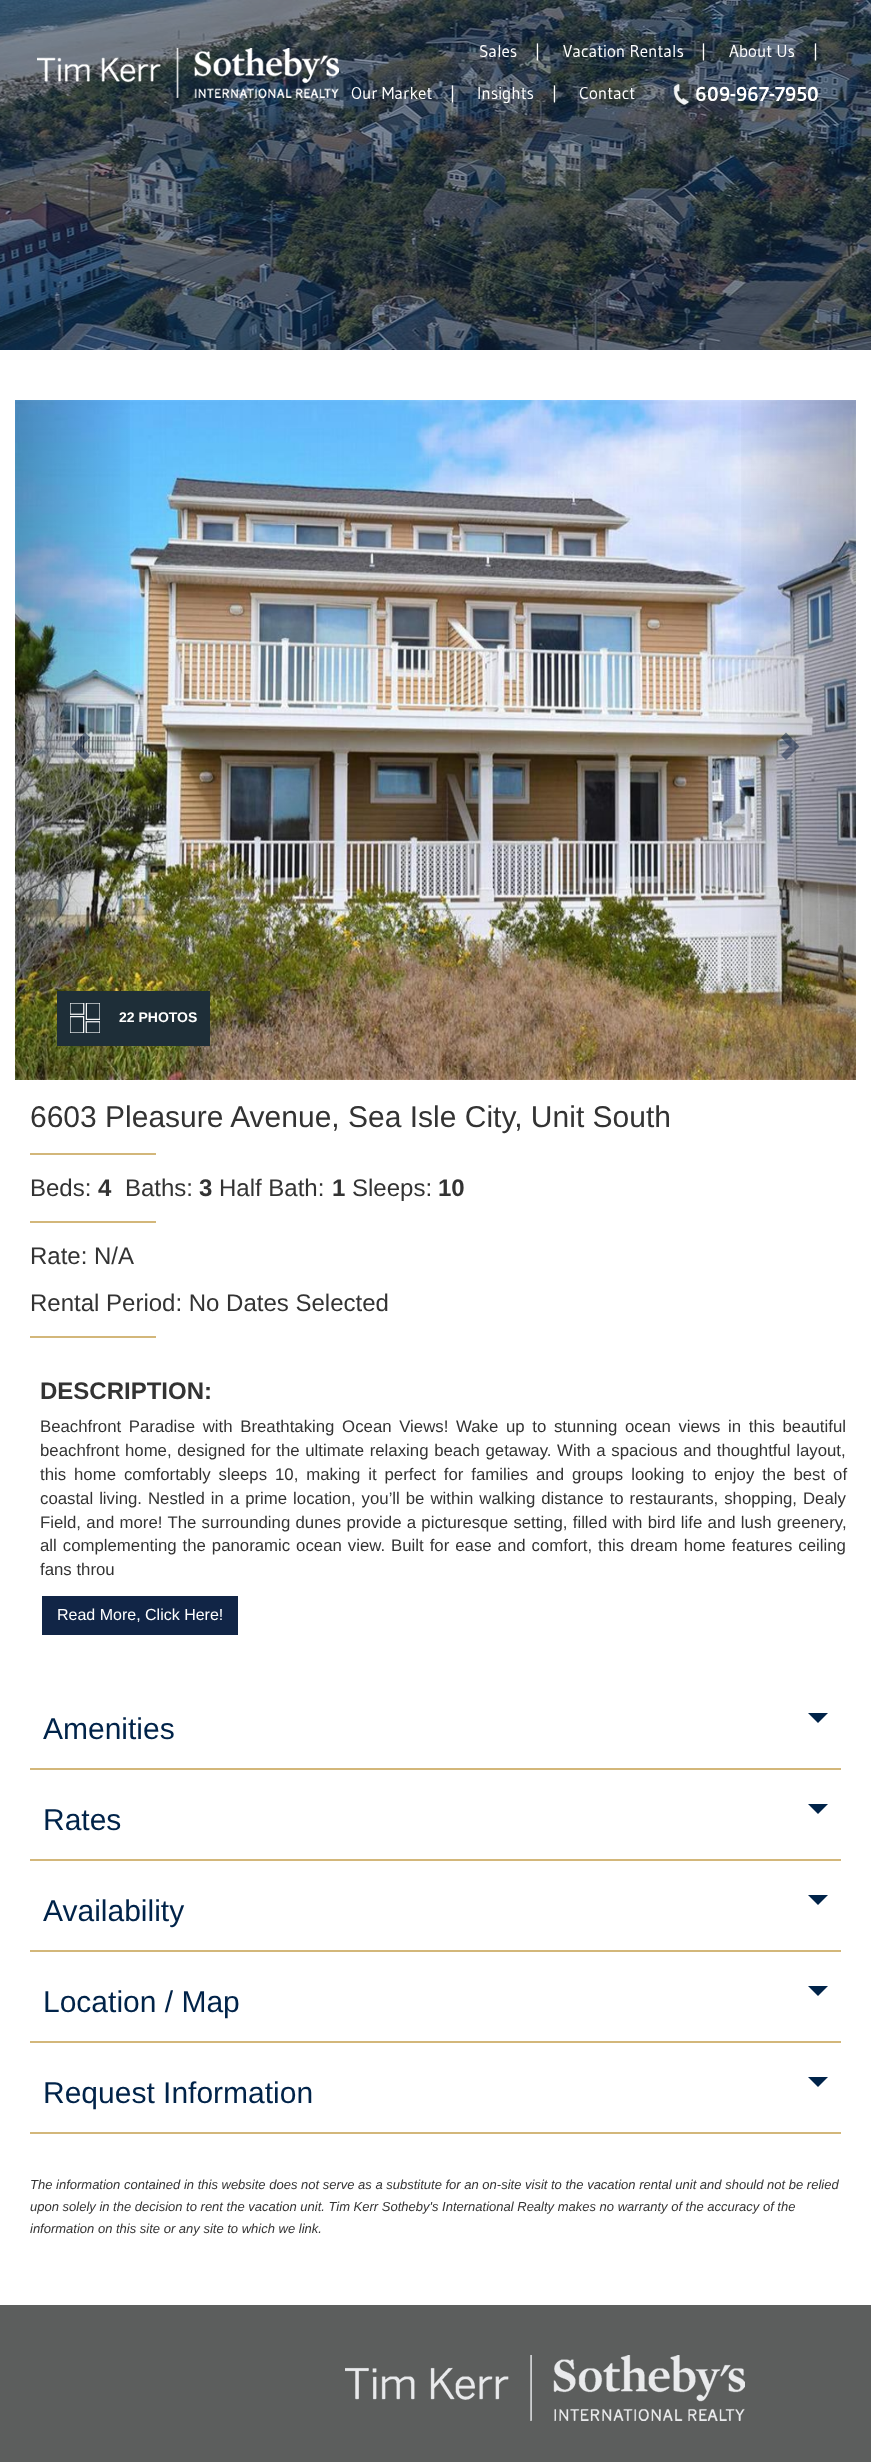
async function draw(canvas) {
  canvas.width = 871
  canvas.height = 2462
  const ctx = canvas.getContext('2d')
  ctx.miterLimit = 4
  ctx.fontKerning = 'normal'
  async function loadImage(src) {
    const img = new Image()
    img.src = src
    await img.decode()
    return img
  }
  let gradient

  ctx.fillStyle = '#fff'
  ctx.fillRect(0, 0, 871, 2462)
  ctx.drawImage(await loadImage('image0.png'), 0, 0, 871, 350)
  ctx.drawImage(await loadImage('image1.png'), 37, 48, 302, 50)
  ctx.font = '17px Gudea'
  ctx.fillText('Sales', 479, 57)
  ctx.fillText('|', 535, 57)
  ctx.fillText('Vacation Rentals', 563, 57)
  ctx.fillText('|', 701, 57)
  ctx.fillText('About Us', 729, 57)
  ctx.fillText('|', 813, 57)
  ctx.fillText('Our Market', 351, 99)
  ctx.fillText('|', 450, 99)
  ctx.fillText('Insights', 477, 99)
  ctx.fillText('|', 552, 99)
  ctx.fillText('Contact', 579, 99)
  ctx.drawImage(await loadImage('image2.png'), 673, 84, 145, 21)
  ctx.drawImage(await loadImage('image3.png'), 15, 400, 841, 680)
  gradient = ctx.createLinearGradient(15, 740, 141, 740)
  gradient.addColorStop(0, '#00000040')
  gradient.addColorStop(1, '#00000000')
  ctx.fillStyle = gradient
  ctx.fillRect(15, 400, 115, 680)
  ctx.fillStyle = '#11254680'
  ctx.beginPath()
  ctx.moveTo(90, 737.5)
  ctx.lineTo(81.5, 746.5)
  ctx.lineTo(90, 755)
  ctx.lineTo(85, 760)
  ctx.lineTo(71.5, 746.5)
  ctx.lineTo(85, 732.5)
  ctx.closePath()
  ctx.fill()
  gradient = ctx.createLinearGradient(730, 740, 856, 740)
  gradient.addColorStop(0, '#00000000')
  gradient.addColorStop(1, '#00000040')
  ctx.fillStyle = gradient
  ctx.fillRect(741, 400, 115, 680)
  ctx.fillStyle = '#11254680'
  ctx.beginPath()
  ctx.moveTo(799.5, 746.5)
  ctx.lineTo(786, 760)
  ctx.lineTo(781, 755)
  ctx.lineTo(789.5, 746.5)
  ctx.lineTo(781, 737.5)
  ctx.lineTo(786, 732.5)
  ctx.closePath()
  ctx.fill()
  ctx.fillStyle = '#1e2e38'
  ctx.fillRect(57, 991, 153, 55)
  ctx.drawImage(await loadImage('image4.png'), 70, 1003, 30, 30)
  ctx.font = 'bold 14px Liberation Sans'
  ctx.fillStyle = '#fff'
  ctx.fillText('22 PHOTOS', 119, 1022)
  ctx.font = '30px Liberation Sans'
  ctx.fillStyle = '#333'
  ctx.fillText('6603 Pleasure Avenue, Sea Isle City, Unit South', 30, 1127)
  ctx.fillStyle = '#d3b77a'
  ctx.fillRect(30, 1153, 126, 2)
  ctx.font = '24px Liberation Sans'
  ctx.fillStyle = '#333'
  ctx.fillText('Beds:', 30, 1196)
  ctx.font = 'bold 24px Liberation Sans'
  ctx.fillText('4', 98, 1196)
  ctx.font = '24px Liberation Sans'
  ctx.fillText('Baths:', 125, 1196)
  ctx.font = 'bold 24px Liberation Sans'
  ctx.fillText('3', 199, 1196)
  ctx.font = '24px Liberation Sans'
  ctx.fillText('Half Bath:', 219, 1196)
  ctx.font = 'bold 24px Liberation Sans'
  ctx.fillText('1', 332, 1196)
  ctx.font = '24px Liberation Sans'
  ctx.fillText('Sleeps:', 352, 1196)
  ctx.font = 'bold 24px Liberation Sans'
  ctx.fillText('10', 438, 1196)
  ctx.fillStyle = '#d3b77a'
  ctx.fillRect(30, 1221, 126, 2)
  ctx.font = '24px Liberation Sans'
  ctx.fillStyle = '#333'
  ctx.fillText('Rate: N/A', 30, 1264)
  ctx.fillText('Rental Period: No Dates Selected', 30, 1311)
  ctx.fillStyle = '#d3b77a'
  ctx.fillRect(30, 1336, 126, 2)
  ctx.font = 'bold 24px Liberation Sans'
  ctx.fillStyle = '#333'
  ctx.fillText('DESCRIPTION:', 40, 1399)
  ctx.wordSpacing = '3px'
  ctx.font = '16.8px Liberation Sans'
  ctx.fillText('Beachfront Paradise with Breathtaking Ocean Views! Wake up to stunning ocean views in this beautiful', 40, 1432)
  ctx.wordSpacing = '1px'
  ctx.fillText('beachfront home, designed for the ultimate relaxing beach getaway. With a spacious and thoughtful layout,', 40, 1456)
  ctx.wordSpacing = '3.25px'
  ctx.fillText('this home comfortably sleeps 10, making it perfect for families and groups looking to enjoy the best of', 40, 1480)
  ctx.wordSpacing = '1.3px'
  ctx.fillText('coastal living. Nestled in a prime location, you’ll be within walking distance to restaurants, shopping, Dealy', 40, 1504)
  ctx.wordSpacing = '0.6px'
  ctx.fillText('Field, and more! The surrounding dunes provide a picturesque setting, filled with bird life and lush greenery,', 40, 1528)
  ctx.wordSpacing = '1.3px'
  ctx.fillText('all complementing the panoramic ocean view. Built for ease and comfort, this dream home features ceiling', 40, 1551)
  ctx.wordSpacing = '0px'
  ctx.fillText('fans throu', 40, 1575)
  ctx.fillStyle = '#112546'
  ctx.fillRect(42, 1596, 196, 39)
  ctx.font = '16px Liberation Sans'
  ctx.fillStyle = '#fff'
  ctx.fillText('Read More, Click Here!', 57, 1620)
  ctx.fillStyle = '#d3b77a'
  ctx.fillRect(30, 1768, 811, 2)
  ctx.font = '30px Liberation Sans'
  ctx.fillStyle = '#002349'
  ctx.fillText('Amenities', 43, 1739)
  ctx.beginPath()
  ctx.moveTo(808, 1713)
  ctx.lineTo(828, 1713)
  ctx.lineTo(818, 1723)
  ctx.closePath()
  ctx.fill()
  ctx.fillStyle = '#d3b77a'
  ctx.fillRect(30, 1859, 811, 2)
  ctx.fillStyle = '#002349'
  ctx.fillText('Rates', 43, 1830)
  ctx.beginPath()
  ctx.moveTo(808, 1804)
  ctx.lineTo(828, 1804)
  ctx.lineTo(818, 1814)
  ctx.closePath()
  ctx.fill()
  ctx.fillStyle = '#d3b77a'
  ctx.fillRect(30, 1950, 811, 2)
  ctx.fillStyle = '#002349'
  ctx.fillText('Availability', 43, 1921)
  ctx.beginPath()
  ctx.moveTo(808, 1895)
  ctx.lineTo(828, 1895)
  ctx.lineTo(818, 1905)
  ctx.closePath()
  ctx.fill()
  ctx.fillStyle = '#d3b77a'
  ctx.fillRect(30, 2041, 811, 2)
  ctx.fillStyle = '#002349'
  ctx.fillText('Location / Map', 43, 2012)
  ctx.beginPath()
  ctx.moveTo(808, 1986)
  ctx.lineTo(828, 1986)
  ctx.lineTo(818, 1996)
  ctx.closePath()
  ctx.fill()
  ctx.fillStyle = '#d3b77a'
  ctx.fillRect(30, 2132, 811, 2)
  ctx.fillStyle = '#002349'
  ctx.fillText('Request Information', 43, 2103)
  ctx.beginPath()
  ctx.moveTo(808, 2077)
  ctx.lineTo(828, 2077)
  ctx.lineTo(818, 2087)
  ctx.closePath()
  ctx.fill()
  ctx.font = 'italic 13px Liberation Sans'
  ctx.fillStyle = '#333'
  ctx.fillText('The information contained in this website does not serve as a substitute for an on-site visit to the vacation rental unit and should not be relied', 30, 2189)
  ctx.fillText('upon solely in the decision to rent the vacation unit. Tim Kerr Sotheby\'s International Realty makes no warranty of the accuracy of the', 30, 2211)
  ctx.fillText('information on this site or any site to which we link.', 30, 2233)
  ctx.fillStyle = '#5c5e5d'
  ctx.fillRect(0, 2305, 871, 157)
  ctx.drawImage(await loadImage('image5.png'), 345, 2355, 400, 66)
}

draw(document.querySelector('canvas'))
